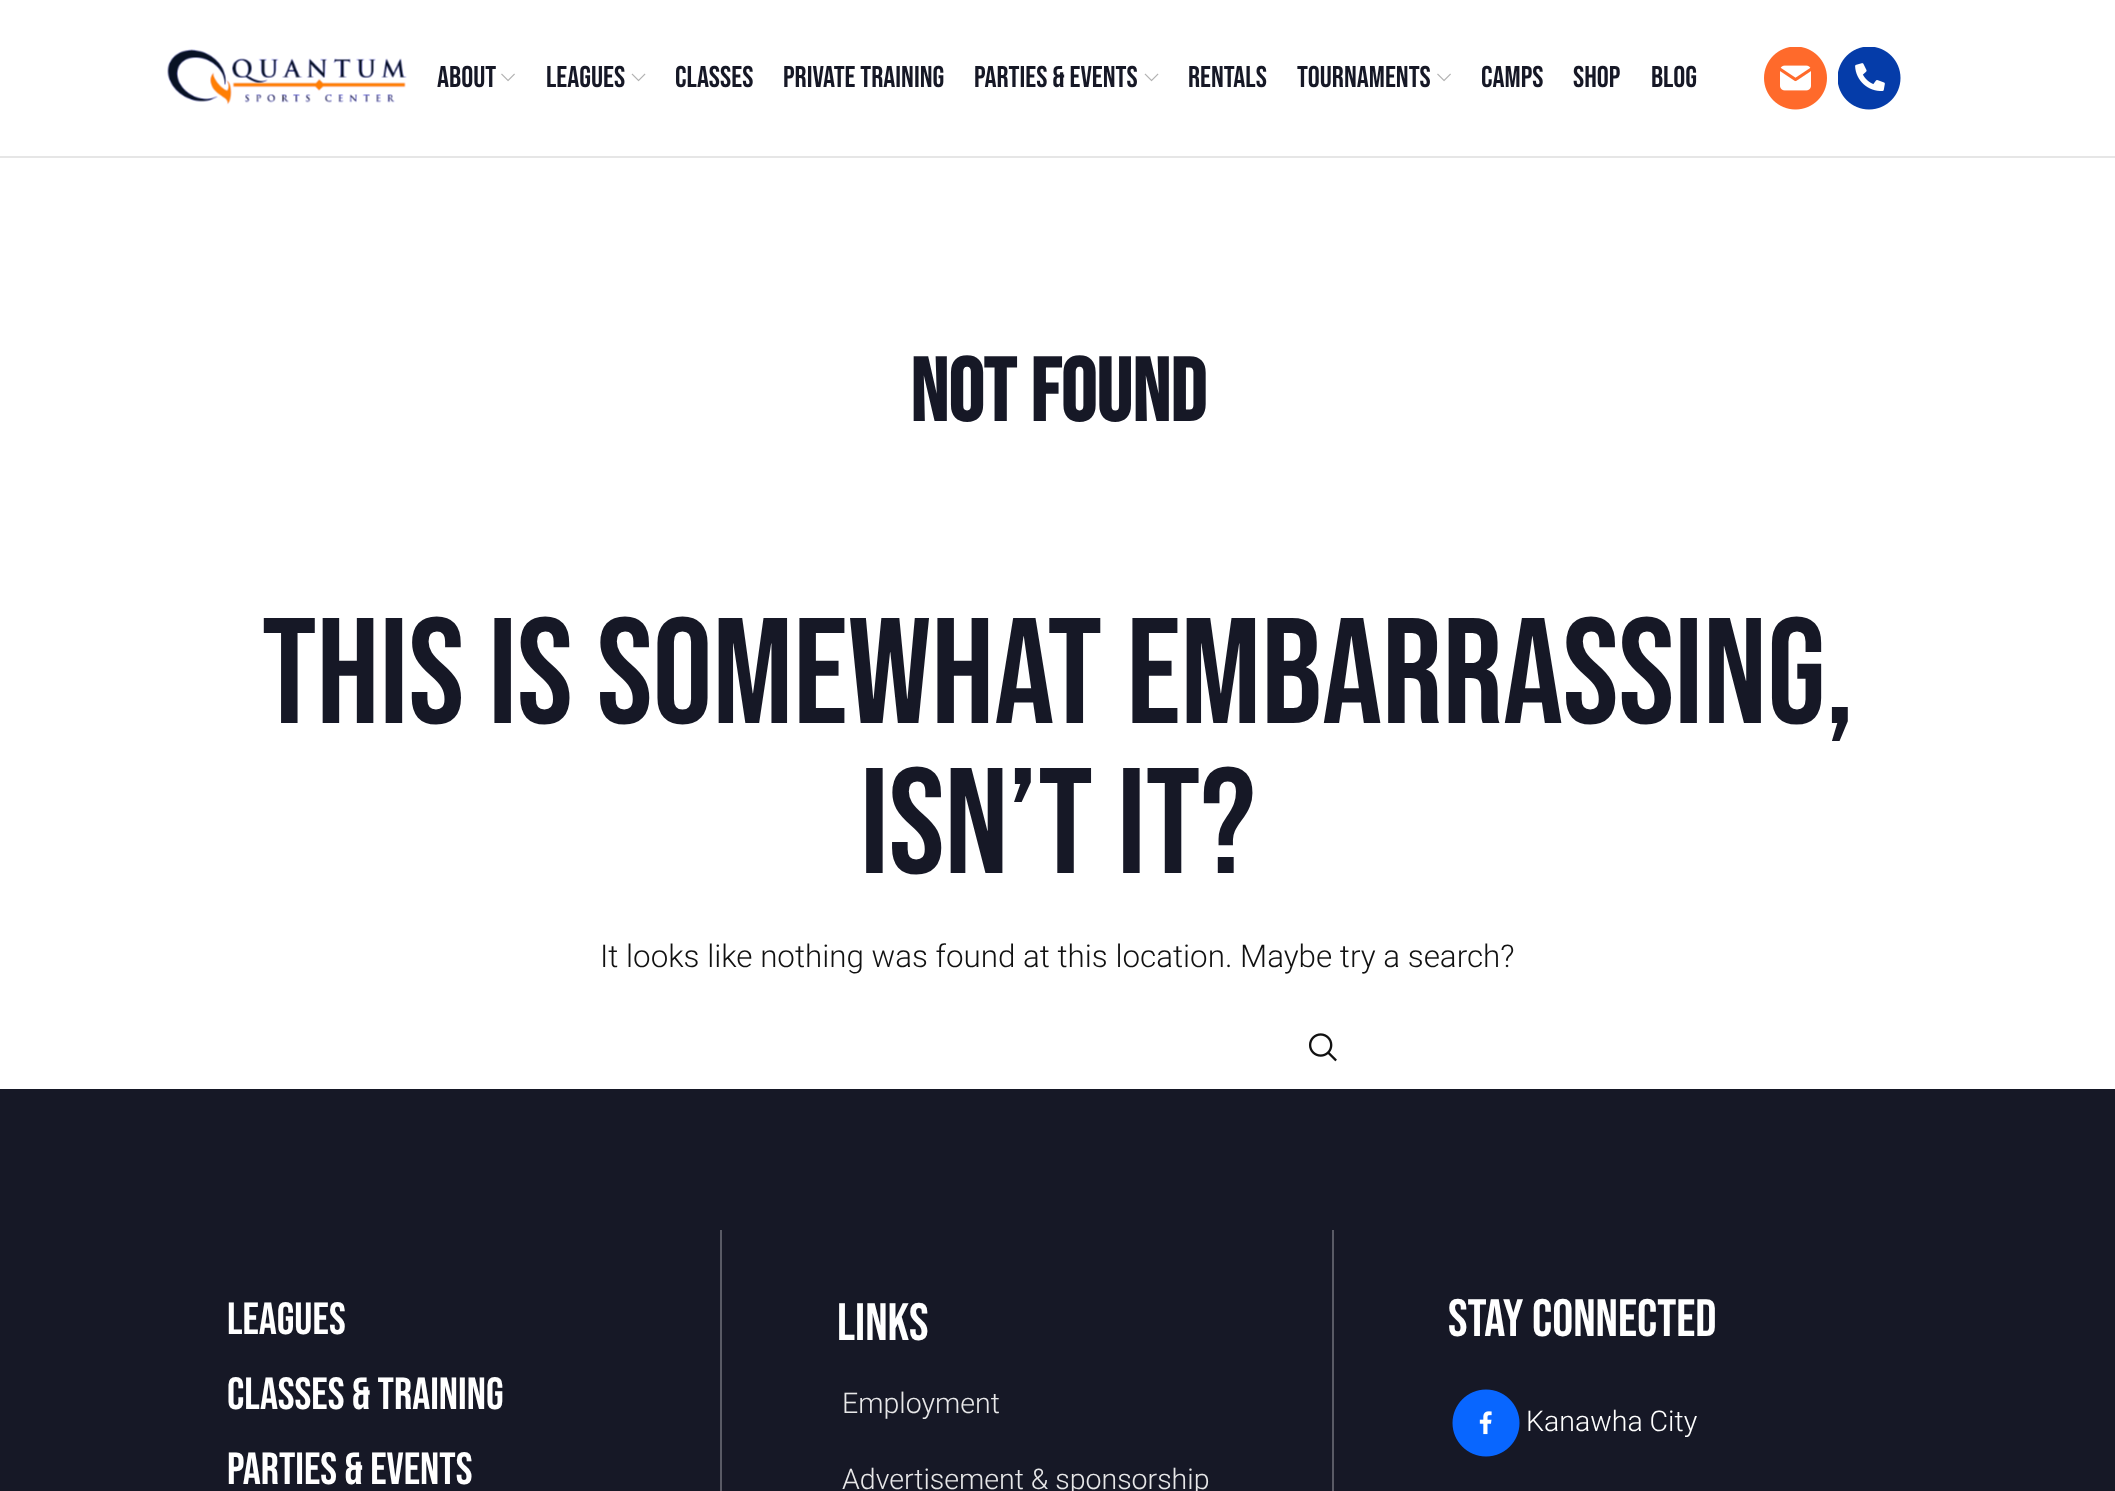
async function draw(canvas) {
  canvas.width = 2115
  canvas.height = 1491
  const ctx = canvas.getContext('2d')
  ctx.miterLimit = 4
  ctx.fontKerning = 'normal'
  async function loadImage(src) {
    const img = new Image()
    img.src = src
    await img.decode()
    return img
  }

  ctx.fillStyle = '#fff'
  ctx.fillRect(0, 0, 2115, 1491)
  ctx.fillStyle = '#e6e6e6'
  ctx.fillRect(0, 156, 2115, 2)
  ctx.drawImage(await loadImage('image0.png'), 167, 49, 240, 56)
  ctx.font = '30px Bebas Neue'
  ctx.fillStyle = '#161826'
  ctx.fillText('ABOUT', 437, 87)
  ctx.drawImage(await loadImage('image1.png'), 501, 73, 14, 9)
  ctx.fillText('LEAGUES', 546, 87)
  ctx.drawImage(await loadImage('image2.png'), 631, 73, 15, 9)
  ctx.fillText('CLASSES', 675, 87)
  ctx.fillText('PRIVATE TRAINING', 783, 87)
  ctx.fillText('PARTIES & EVENTS', 974, 87)
  ctx.drawImage(await loadImage('image2.png'), 1144, 73, 15, 9)
  ctx.fillText('RENTALS', 1188, 87)
  ctx.fillText('TOURNAMENTS', 1297, 87)
  ctx.drawImage(await loadImage('image1.png'), 1437, 73, 14, 9)
  ctx.fillText('CAMPS', 1481, 87)
  ctx.fillText('SHOP', 1573, 87)
  ctx.fillText('BLOG', 1651, 87)
  ctx.drawImage(await loadImage('image3.png'), 1764, 47, 63, 63)
  ctx.drawImage(await loadImage('image4.png'), 1838, 47, 63, 63)
  ctx.font = 'bold 89px Bebas Neue'
  ctx.fillText('NOT FOUND', 910, 421)
  ctx.font = '150px Bebas Neue'
  ctx.fillText('This is somewhat embarrassing,', 262, 723)
  ctx.fillText('isn’t it?', 860, 873)
  ctx.font = '300 31.35px Roboto'
  ctx.fillStyle = '#111'
  ctx.fillText('It looks like nothing was found at this location. Maybe try a search?', 600, 967)
  ctx.drawImage(await loadImage('image5.png'), 1309, 1033, 28, 29)
  ctx.fillStyle = '#161826'
  ctx.fillRect(0, 1089, 2115, 402)
  ctx.fillStyle = '#595a65'
  ctx.fillRect(720, 1230, 2, 261)
  ctx.font = '45px Bebas Neue'
  ctx.fillStyle = '#fff'
  ctx.fillText('LEAGUES', 227, 1334)
  ctx.fillText('CLASSES & TRAINING', 227, 1409)
  ctx.fillText('PARTIES & EVENTS', 227, 1484)
  ctx.fillStyle = '#595a65'
  ctx.fillRect(1332, 1230, 2, 261)
  ctx.font = '52.5px Bebas Neue'
  ctx.fillStyle = '#fff'
  ctx.fillText('LINKS', 837, 1340)
  ctx.font = '300 28.5px Roboto'
  ctx.fillStyle = '#e8e8e9'
  ctx.fillText('Employment', 842, 1413)
  ctx.fillText('Advertisement & sponsorship', 842, 1489)
  ctx.font = '52.5px Bebas Neue'
  ctx.fillStyle = '#fff'
  ctx.fillText('STAY CONNECTED', 1448, 1336)
  ctx.drawImage(await loadImage('image6.png'), 1452, 1389, 68, 68)
  ctx.font = '300 28.5px Roboto'
  ctx.fillText('Kanawha City', 1526, 1431)
}

draw(document.querySelector('canvas'))
